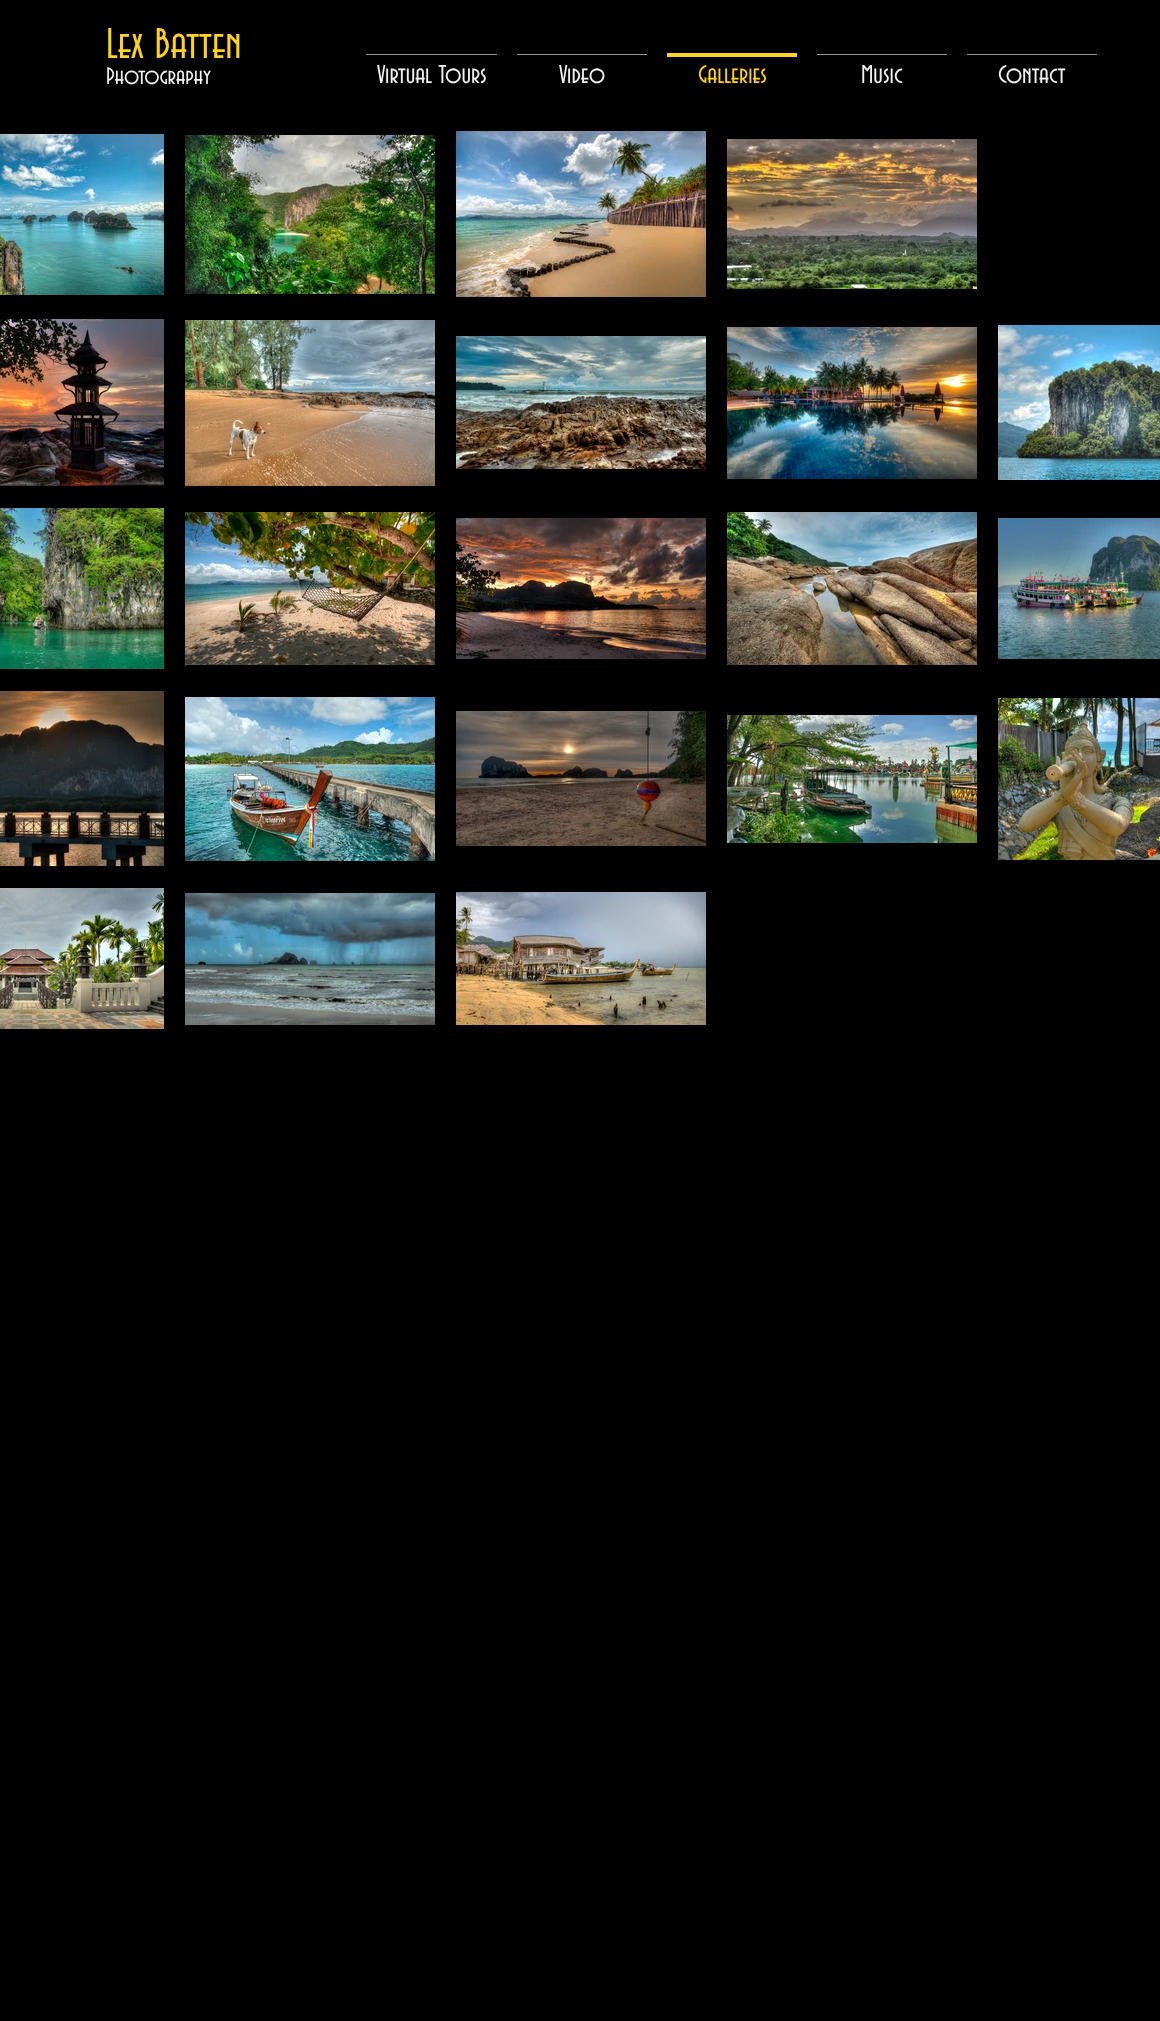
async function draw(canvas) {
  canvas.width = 1160
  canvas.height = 2021
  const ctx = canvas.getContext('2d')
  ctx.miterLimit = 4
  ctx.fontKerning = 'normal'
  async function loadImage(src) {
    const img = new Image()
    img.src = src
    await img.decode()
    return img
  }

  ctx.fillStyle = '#000'
  ctx.fillRect(0, 0, 1160, 2021)
  ctx.font = '45px "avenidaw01"'
  ctx.fillStyle = '#ffd323'
  ctx.fillText('Lex Batten', 106, 58)
  ctx.font = '25px "avenidaw01"'
  ctx.fillStyle = '#f2f2f2'
  ctx.fillText('Photography', 106, 84)
  ctx.fillStyle = '#999'
  ctx.fillRect(366, 54, 131, 1)
  ctx.font = '27px "avenidaw01"'
  ctx.fillStyle = '#f2f2f2'
  ctx.fillText('Virtual Tours', 377, 83)
  ctx.fillStyle = '#999'
  ctx.fillRect(517, 54, 130, 1)
  ctx.fillStyle = '#f2f2f2'
  ctx.fillText('Video', 559, 83)
  ctx.fillStyle = '#ffd323'
  ctx.fillRect(667, 53, 130, 4)
  ctx.fillText('Galleries', 698, 83)
  ctx.fillStyle = '#999'
  ctx.fillRect(817, 54, 130, 1)
  ctx.fillStyle = '#f2f2f2'
  ctx.fillText('Music', 861, 83)
  ctx.fillStyle = '#999'
  ctx.fillRect(967, 54, 130, 1)
  ctx.fillStyle = '#f2f2f2'
  ctx.fillText('Contact', 998, 83)
  ctx.drawImage(await loadImage('image0.png'), 0, 134, 164, 161)
  ctx.drawImage(await loadImage('image1.png'), 185, 135, 250, 159)
  ctx.drawImage(await loadImage('image2.png'), 456, 131, 250, 166)
  ctx.drawImage(await loadImage('image3.png'), 727, 139, 250, 150)
  ctx.drawImage(await loadImage('image4.png'), 0, 319, 164, 167)
  ctx.drawImage(await loadImage('image5.png'), 185, 320, 250, 166)
  ctx.drawImage(await loadImage('image6.png'), 456, 336, 250, 133)
  ctx.drawImage(await loadImage('image7.png'), 727, 327, 250, 152)
  ctx.drawImage(await loadImage('image8.png'), 998, 325, 162, 155)
  ctx.drawImage(await loadImage('image9.png'), 0, 508, 164, 161)
  ctx.drawImage(await loadImage('image10.png'), 185, 512, 250, 153)
  ctx.drawImage(await loadImage('image11.png'), 456, 518, 250, 141)
  ctx.drawImage(await loadImage('image12.png'), 727, 512, 250, 153)
  ctx.drawImage(await loadImage('image13.png'), 998, 518, 162, 141)
  ctx.drawImage(await loadImage('image14.png'), 0, 691, 164, 175)
  ctx.drawImage(await loadImage('image15.png'), 185, 697, 250, 164)
  ctx.drawImage(await loadImage('image16.png'), 456, 711, 250, 135)
  ctx.drawImage(await loadImage('image17.png'), 727, 715, 250, 128)
  ctx.drawImage(await loadImage('image18.png'), 998, 698, 162, 162)
  ctx.drawImage(await loadImage('image19.png'), 0, 888, 164, 141)
  ctx.drawImage(await loadImage('image20.png'), 185, 893, 250, 132)
  ctx.drawImage(await loadImage('image21.png'), 456, 892, 250, 133)
}

draw(document.querySelector('canvas'))
